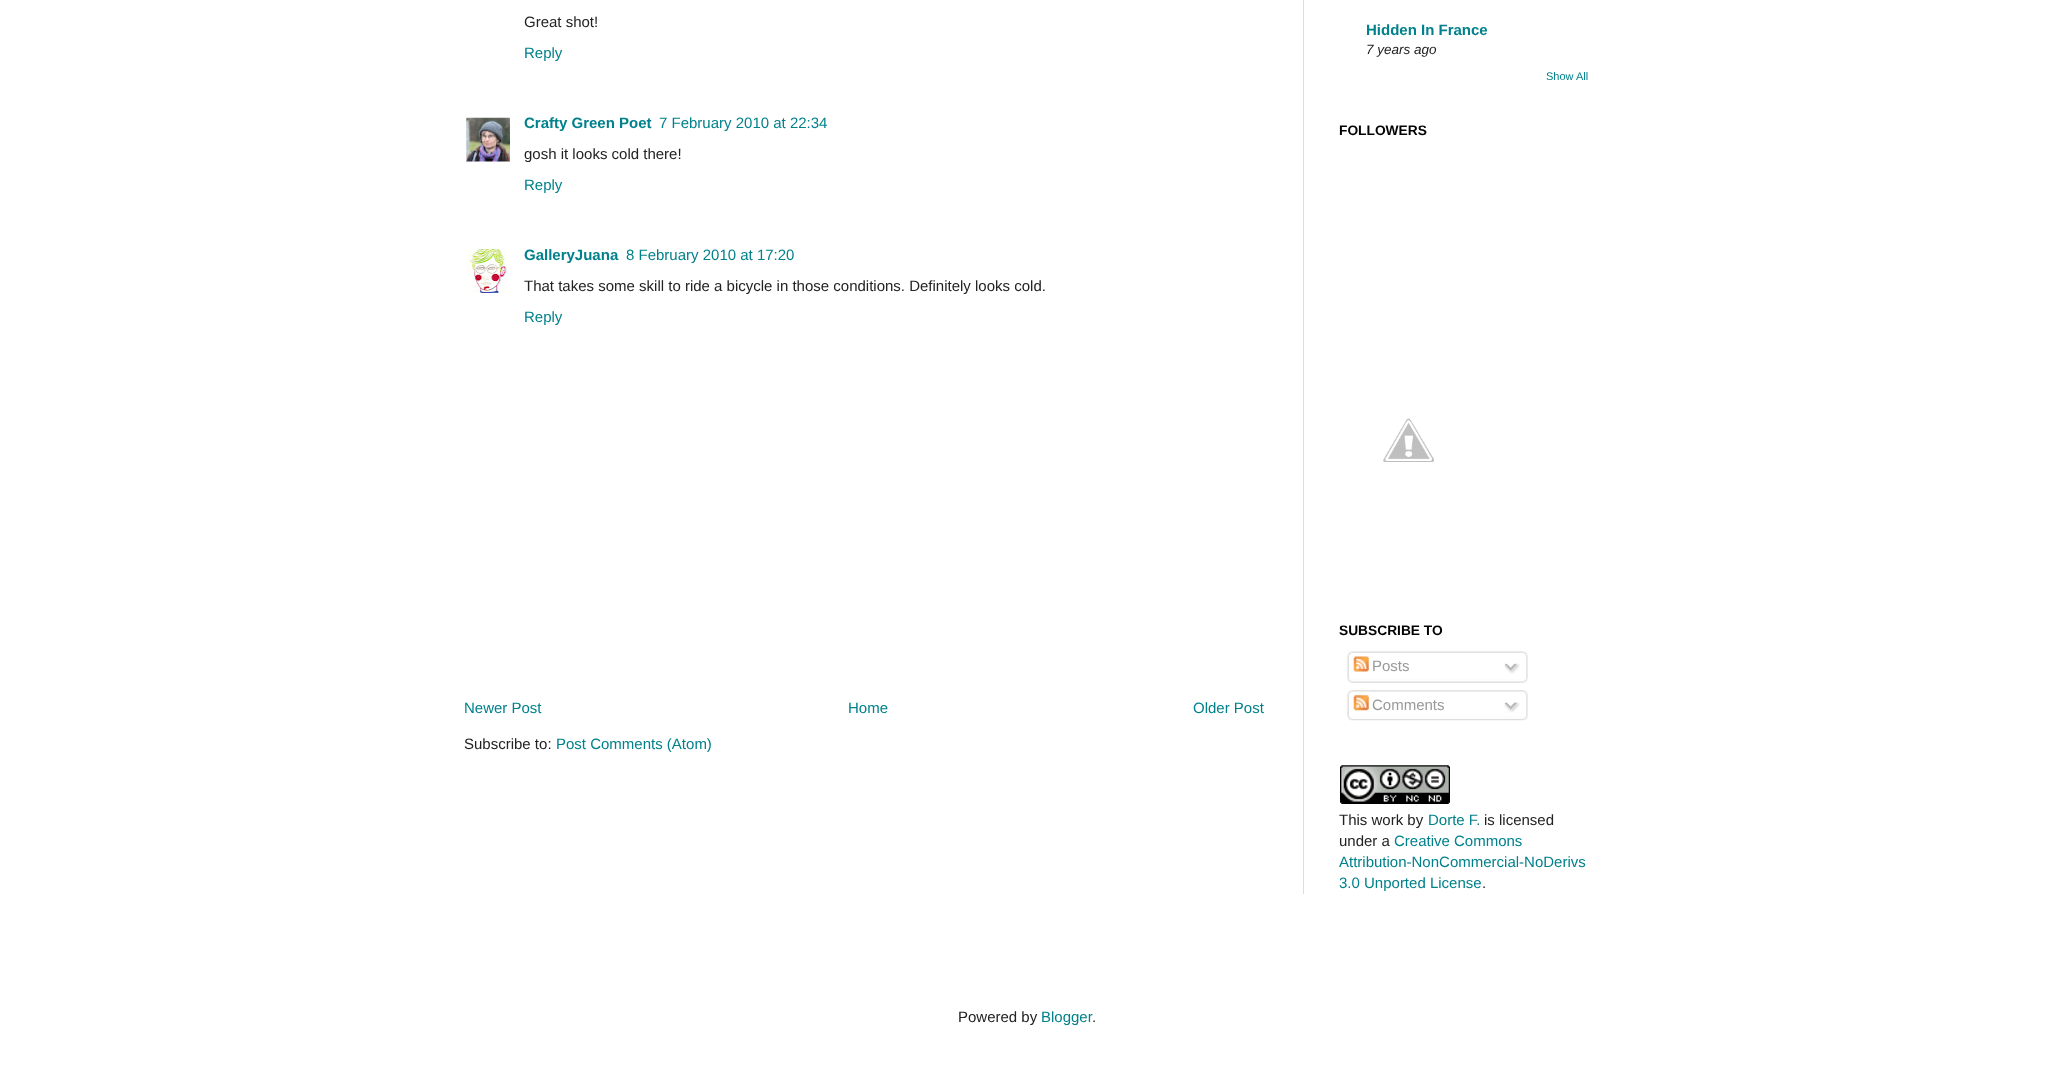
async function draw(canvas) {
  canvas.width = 2053
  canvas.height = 1065
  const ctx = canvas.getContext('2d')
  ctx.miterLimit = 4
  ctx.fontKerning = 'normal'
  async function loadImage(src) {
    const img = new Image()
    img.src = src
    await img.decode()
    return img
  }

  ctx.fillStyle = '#fff'
  ctx.fillRect(0, 0, 2053, 1065)
  ctx.fillStyle = '#ddd'
  ctx.fillRect(1303, 0, 1, 894)
  ctx.font = '15px Liberation Sans'
  ctx.fillStyle = '#222'
  ctx.fillText('Great shot!', 524, 27)
  ctx.fillStyle = '#00818b'
  ctx.fillText('Reply', 524, 58)
  ctx.drawImage(await loadImage('image0.png'), 466, 117, 44, 45)
  ctx.font = 'bold 15px Liberation Sans'
  ctx.fillText('Crafty Green Poet', 524, 128)
  ctx.font = '15px Liberation Sans'
  ctx.fillText('7 February 2010 at 22:34', 659, 128)
  ctx.fillStyle = '#222'
  ctx.fillText('gosh it looks cold there!', 524, 159)
  ctx.fillStyle = '#00818b'
  ctx.fillText('Reply', 524, 190)
  ctx.drawImage(await loadImage('image1.png'), 466, 249, 41, 44)
  ctx.font = 'bold 15px Liberation Sans'
  ctx.fillText('GalleryJuana', 524, 260)
  ctx.font = '15px Liberation Sans'
  ctx.fillText('8 February 2010 at 17:20', 626, 260)
  ctx.fillStyle = '#222'
  ctx.fillText('That takes some skill to ride a bicycle in those conditions. Definitely looks cold.', 524, 291)
  ctx.fillStyle = '#00818b'
  ctx.fillText('Reply', 524, 322)
  ctx.fillText('Newer Post', 464, 713)
  ctx.fillText('Home', 848, 713)
  ctx.fillText('Older Post', 1193, 713)
  ctx.fillStyle = '#222'
  ctx.fillText('Subscribe to:', 464, 749)
  ctx.fillStyle = '#00818b'
  ctx.fillText('Post Comments (Atom)', 556, 749)
  ctx.font = 'bold 15px Liberation Sans'
  ctx.fillText('Hidden In France', 1366, 35)
  ctx.font = 'italic 13.5px Liberation Sans'
  ctx.fillStyle = '#222'
  ctx.fillText('7 years ago', 1366, 54)
  ctx.font = '11px Liberation Sans'
  ctx.fillStyle = '#00818b'
  ctx.fillText('Show All', 1546, 80)
  ctx.font = 'bold 13.75px Liberation Sans'
  ctx.fillStyle = '#000'
  ctx.fillText('FOLLOWERS', 1339, 135)
  ctx.drawImage(await loadImage('image2.png'), 1383, 418, 51, 44)
  ctx.fillText('SUBSCRIBE TO', 1339, 635)
  ctx.drawImage(await loadImage('image3.png'), 1347, 651, 181, 28)
  ctx.drawImage(await loadImage('image4.png'), 1353, 656, 16, 16)
  ctx.font = '15px Liberation Sans'
  ctx.fillStyle = '#999'
  ctx.fillText('Posts', 1372, 671)
  ctx.drawImage(await loadImage('image5.png'), 1504, 663, 16, 11)
  ctx.drawImage(await loadImage('image6.png'), 1347, 679, 181, 4)
  ctx.drawImage(await loadImage('image7.png'), 1347, 690, 181, 27)
  ctx.drawImage(await loadImage('image8.png'), 1353, 695, 16, 16)
  ctx.fillText('Comments', 1372, 710)
  ctx.drawImage(await loadImage('image9.png'), 1504, 702, 16, 11)
  ctx.drawImage(await loadImage('image10.png'), 1347, 716, 181, 5)
  ctx.drawImage(await loadImage('image11.png'), 1340, 765, 110, 39)
  ctx.fillStyle = '#222'
  ctx.fillText('This work by', 1339, 825)
  ctx.fillStyle = '#00818b'
  ctx.fillText('Dorte F.', 1428, 825)
  ctx.fillStyle = '#222'
  ctx.fillText('is licensed', 1484, 825)
  ctx.fillText('under a', 1339, 846)
  ctx.fillStyle = '#00818b'
  ctx.fillText('Creative Commons', 1394, 846)
  ctx.fillText('Attribution-NonCommercial-NoDerivs', 1339, 867)
  ctx.fillText('3.0 Unported License', 1339, 888)
  ctx.fillStyle = '#222'
  ctx.fillText('.', 1482, 888)
  ctx.fillText('Powered by', 958, 1022)
  ctx.fillStyle = '#00818b'
  ctx.fillText('Blogger', 1041, 1022)
  ctx.fillStyle = '#222'
  ctx.fillText('.', 1092, 1022)
}

draw(document.querySelector('canvas'))
